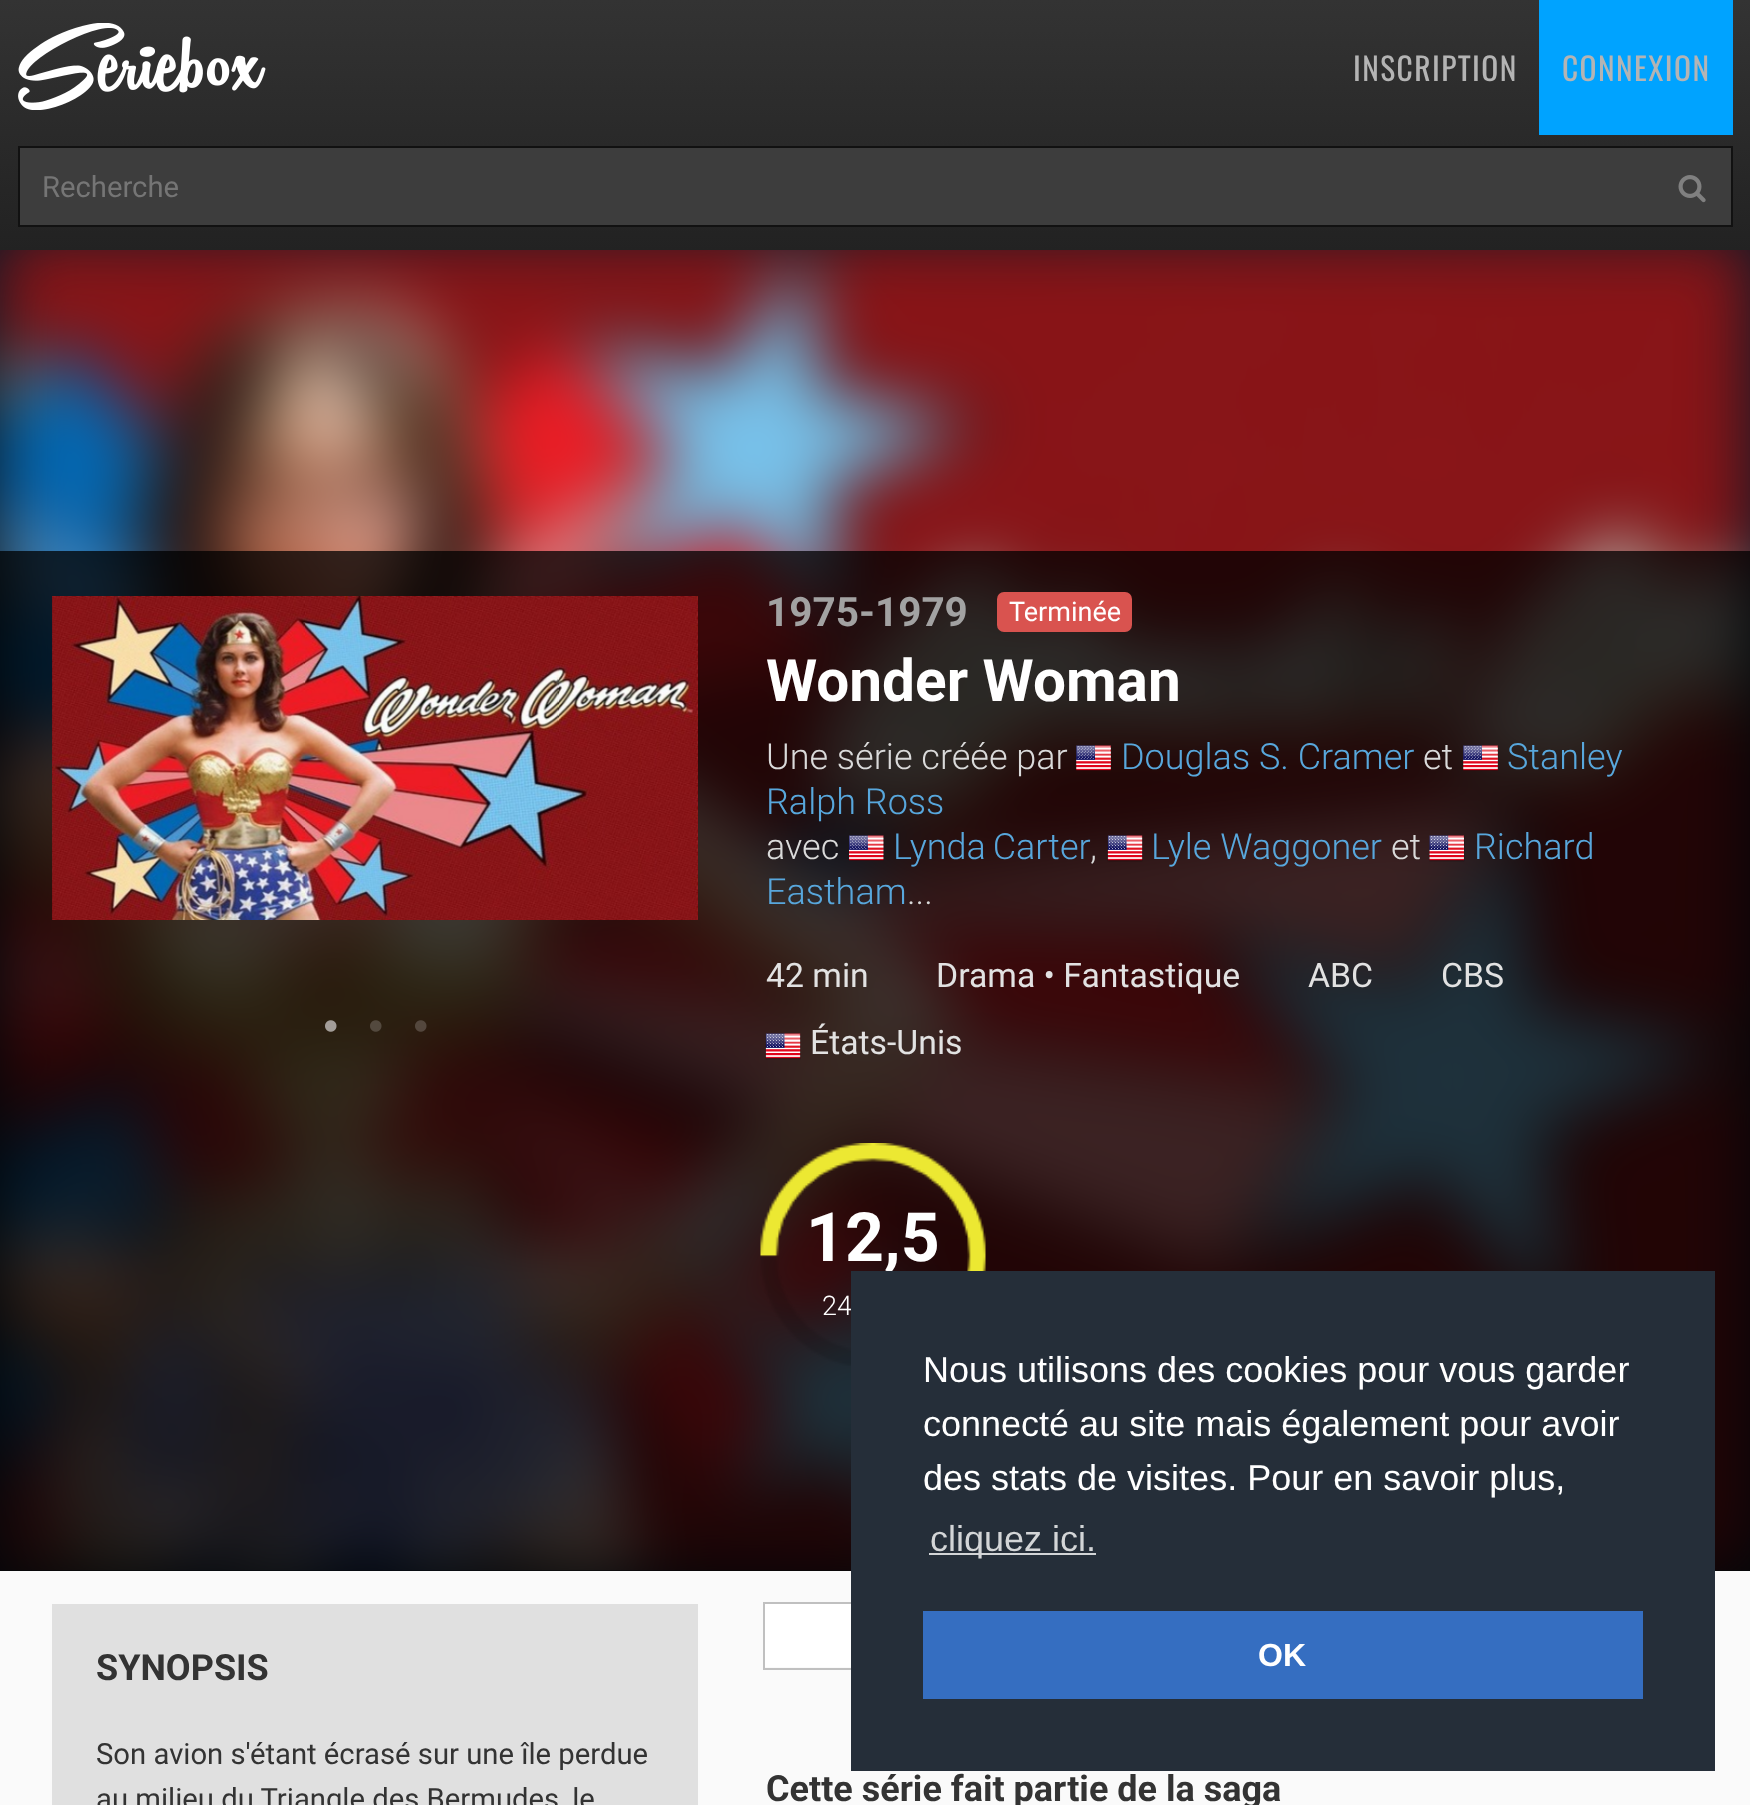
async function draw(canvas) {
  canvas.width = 1750
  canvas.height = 1805
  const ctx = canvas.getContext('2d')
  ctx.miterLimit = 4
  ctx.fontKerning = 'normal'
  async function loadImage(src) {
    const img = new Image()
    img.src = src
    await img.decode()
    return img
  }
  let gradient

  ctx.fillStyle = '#fafafa'
  ctx.fillRect(0, 0, 1750, 1805)
  gradient = ctx.createLinearGradient(875, 0, 875, 250)
  gradient.addColorStop(0, '#333')
  gradient.addColorStop(1, '#222')
  ctx.fillStyle = gradient
  ctx.fillRect(0, 0, 1750, 250)
  ctx.drawImage(await loadImage('image0.png'), 18, 23, 248, 87)
  ctx.letterSpacing = '1.4px'
  ctx.font = '31.5px Oswald'
  ctx.fillStyle = '#b4b4b4'
  ctx.fillText('INSCRIPTION', 1353, 81)
  ctx.fillStyle = '#00a3ff'
  ctx.fillRect(1539, 0, 194, 135)
  ctx.fillStyle = '#b4b4b4'
  ctx.fillText('CONNEXION', 1562, 81)
  ctx.fillStyle = '#3d3d3d'
  ctx.beginPath()
  ctx.rect(19, 147, 1713, 79)
  ctx.fill()
  ctx.strokeStyle = '#111'
  ctx.lineWidth = 2
  ctx.stroke()
  ctx.letterSpacing = '0px'
  ctx.font = '29.25px Roboto'
  ctx.fillStyle = '#757575'
  ctx.fillText('Recherche', 42, 197)
  ctx.drawImage(await loadImage('image1.png'), 1678, 175, 28, 28)
  ctx.fillStyle = '#0a1a27'
  ctx.fillRect(0, 250, 1750, 1321)
  ctx.drawImage(await loadImage('image2.png'), 0, 250, 1750, 1321)
  ctx.fillStyle = '#000000bf'
  ctx.fillRect(0, 551, 1750, 1020)
  ctx.drawImage(await loadImage('image3.png'), 52, 596, 1, 324)
  ctx.drawImage(await loadImage('image4.png'), 52, 596, 646, 324)
  ctx.drawImage(await loadImage('image5.png'), 325, 1020, 12, 12)
  ctx.drawImage(await loadImage('image6.png'), 370, 1020, 12, 12)
  ctx.drawImage(await loadImage('image7.png'), 415, 1020, 12, 12)
  ctx.font = 'bold 40.5px Roboto'
  ctx.fillStyle = '#a2a2a2'
  ctx.fillText('1975-1979', 766, 626)
  ctx.fillStyle = '#d9534f'
  ctx.beginPath()
  ctx.roundRect(997, 592, 135, 40, 7)
  ctx.fill()
  ctx.font = '27px Roboto'
  ctx.fillStyle = '#fff'
  ctx.fillText('Terminée', 1009, 621)
  ctx.font = 'bold 58.5px Roboto'
  ctx.fillText('Wonder Woman', 766, 701)
  ctx.font = '300 36px Roboto'
  ctx.fillStyle = '#dadada'
  ctx.fillText('Une série créée par', 766, 769)
  ctx.drawImage(await loadImage('image8.png'), 1076, 745, 35, 26)
  ctx.fillStyle = '#58a7dc'
  ctx.fillText('Douglas S. Cramer', 1121, 769)
  ctx.fillStyle = '#dadada'
  ctx.fillText('et', 1423, 769)
  ctx.drawImage(await loadImage('image9.png'), 1463, 745, 35, 26)
  ctx.fillStyle = '#58a7dc'
  ctx.fillText('Stanley', 1507, 769)
  ctx.fillText('Ralph Ross', 766, 814)
  ctx.fillStyle = '#dadada'
  ctx.fillText('avec', 766, 859)
  ctx.drawImage(await loadImage('image10.png'), 849, 835, 35, 26)
  ctx.wordSpacing = '-2px'
  ctx.fillStyle = '#58a7dc'
  ctx.fillText('Lynda Carter', 893, 859)
  ctx.wordSpacing = '0px'
  ctx.fillStyle = '#dadada'
  ctx.fillText(',', 1090, 859)
  ctx.drawImage(await loadImage('image11.png'), 1107, 835, 36, 27)
  ctx.fillStyle = '#58a7dc'
  ctx.fillText('Lyle Waggoner', 1151, 859)
  ctx.fillStyle = '#dadada'
  ctx.fillText('et', 1391, 859)
  ctx.drawImage(await loadImage('image12.png'), 1429, 835, 36, 27)
  ctx.fillStyle = '#58a7dc'
  ctx.fillText('Richard', 1474, 859)
  ctx.fillText('Eastham', 766, 904)
  ctx.fillStyle = '#dadada'
  ctx.fillText('...', 907, 904)
  ctx.font = '33.75px Roboto'
  ctx.fillStyle = '#e2e2e2'
  ctx.fillText('42 min', 766, 987)
  ctx.fillText('Drama • Fantastique', 936, 987)
  ctx.fillText('ABC', 1308, 987)
  ctx.fillText('CBS', 1441, 987)
  ctx.drawImage(await loadImage('image13.png'), 765, 1033, 36, 27)
  ctx.fillText('États-Unis', 810, 1054)
  ctx.drawImage(await loadImage('image14.png'), 760, 1143, 226, 223)
  ctx.font = 'bold 68px Roboto'
  ctx.fillStyle = '#fff'
  ctx.fillText('12,5', 806, 1261)
  ctx.font = '300 27px Roboto'
  ctx.fillText('24', 822, 1315)
  ctx.fillStyle = '#e0e0e0'
  ctx.fillRect(52, 1604, 646, 201)
  ctx.font = 'bold 36px Roboto'
  ctx.fillStyle = '#333'
  ctx.fillText('SYNOPSIS', 96, 1680)
  ctx.font = '29.25px Roboto'
  ctx.fillText('Son avion s\'étant écrasé sur une île perdue', 96, 1764)
  ctx.fillText('au milieu du Triangle des Bermudes, le', 96, 1809)
  ctx.strokeStyle = '#c0c0c0'
  ctx.strokeRect(764, 1603, 452, 66)
  ctx.fillStyle = '#fff'
  ctx.fillRect(765, 1604, 86, 63)
  ctx.font = 'bold 36px Roboto'
  ctx.fillStyle = '#333'
  ctx.fillText('Cette série fait partie de la saga', 766, 1801)
  ctx.fillStyle = '#252e39'
  ctx.fillRect(851, 1271, 864, 500)
  ctx.font = '36px Liberation Sans'
  ctx.fillStyle = '#fff'
  ctx.fillText('Nous utilisons des cookies pour vous garder', 923, 1382)
  ctx.fillText('connecté au site mais également pour avoir', 923, 1436)
  ctx.fillText('des stats de visites. Pour en savoir plus,', 923, 1490)
  ctx.fillStyle = '#d3d5d7'
  ctx.fillRect(929, 1553, 167, 2)
  ctx.fillText('cliquez ici.', 930, 1551)
  ctx.fillStyle = '#356ec1'
  ctx.fillRect(923, 1611, 720, 88)
  ctx.font = 'bold 32px Liberation Sans'
  ctx.fillStyle = '#fff'
  ctx.fillText('OK', 1258, 1666)
}

draw(document.querySelector('canvas'))
